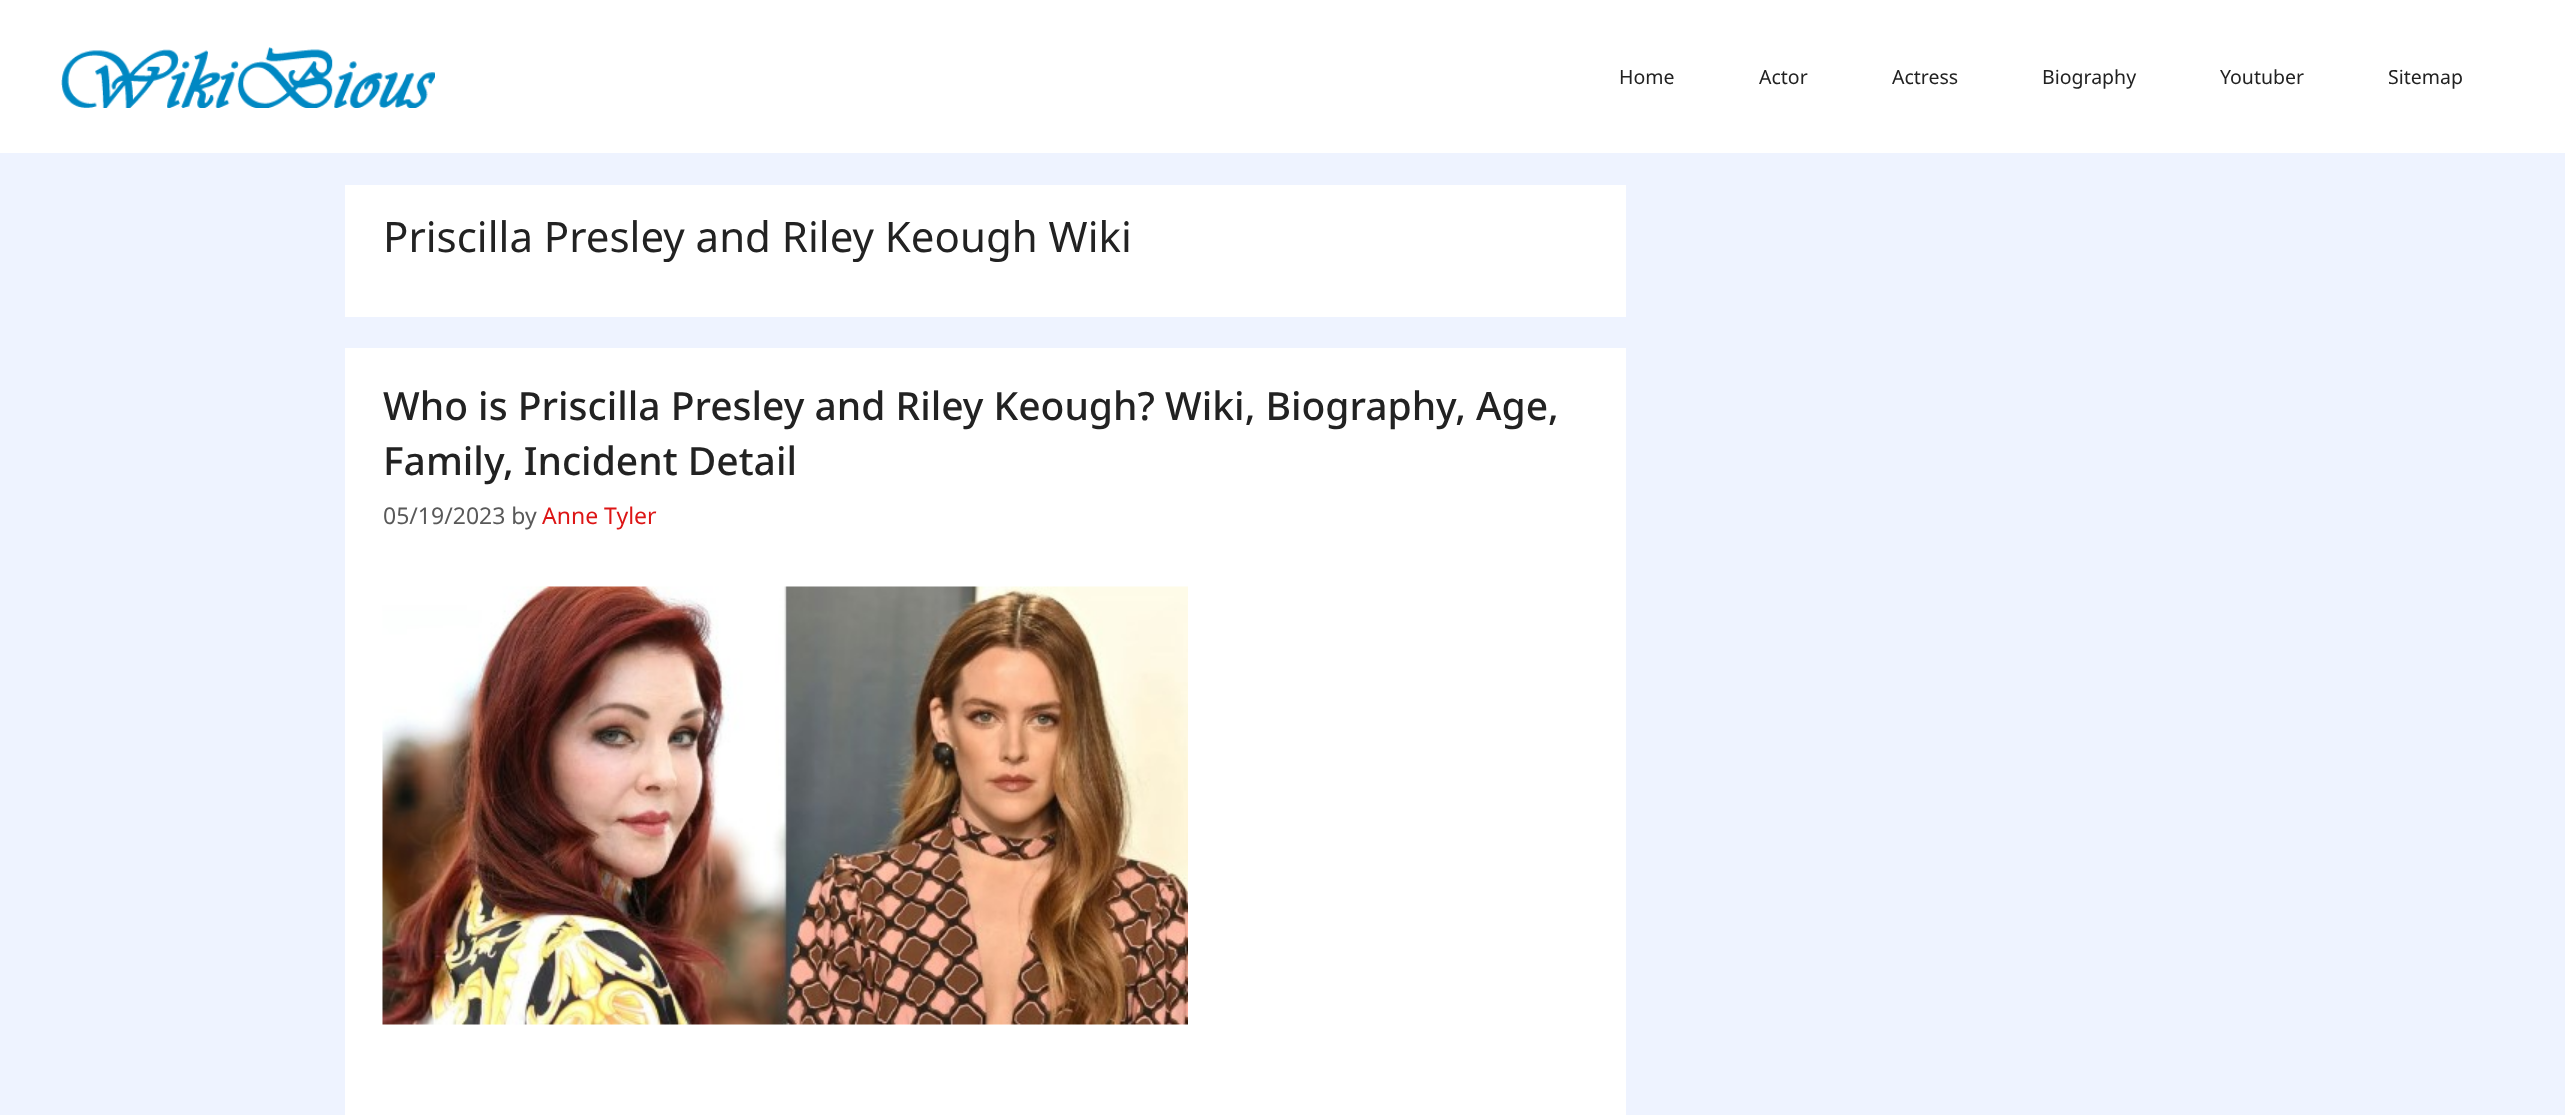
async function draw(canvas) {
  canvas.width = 2565
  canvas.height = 1115
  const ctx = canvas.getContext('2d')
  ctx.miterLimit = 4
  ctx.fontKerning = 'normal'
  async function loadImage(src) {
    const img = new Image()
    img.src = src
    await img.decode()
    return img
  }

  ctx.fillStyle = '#eef3ff'
  ctx.fillRect(0, 0, 2565, 1115)
  ctx.fillStyle = '#fff'
  ctx.fillRect(0, 0, 2565, 153)
  ctx.drawImage(await loadImage('image0.png'), 61, 47, 374, 61)
  ctx.font = '19.5px Noto Sans'
  ctx.fillStyle = '#222'
  ctx.fillText('Home', 1619, 84)
  ctx.fillText('Actor', 1759, 84)
  ctx.fillText('Actress', 1892, 84)
  ctx.fillText('Biography', 2042, 84)
  ctx.fillText('Youtuber', 2220, 84)
  ctx.fillText('Sitemap', 2388, 84)
  ctx.fillStyle = '#fff'
  ctx.fillRect(345, 185, 1281, 132)
  ctx.font = '42px Noto Sans'
  ctx.fillStyle = '#222'
  ctx.fillText('Priscilla Presley and Riley Keough Wiki', 383, 252)
  ctx.fillStyle = '#fff'
  ctx.fillRect(345, 348, 1281, 767)
  ctx.font = '500 39px Noto Sans'
  ctx.fillStyle = '#222'
  ctx.fillText('Who is Priscilla Presley and Riley Keough? Wiki, Biography, Age,', 383, 420)
  ctx.fillText('Family, Incident Detail', 383, 475)
  ctx.font = '23px Noto Sans'
  ctx.fillStyle = '#595959'
  ctx.fillText('05/19/2023 by', 383, 524)
  ctx.fillStyle = '#dd1515'
  ctx.fillText('Anne Tyler', 542, 524)
  ctx.drawImage(await loadImage('image1.png'), 382, 586, 806, 439)
}

draw(document.querySelector('canvas'))
